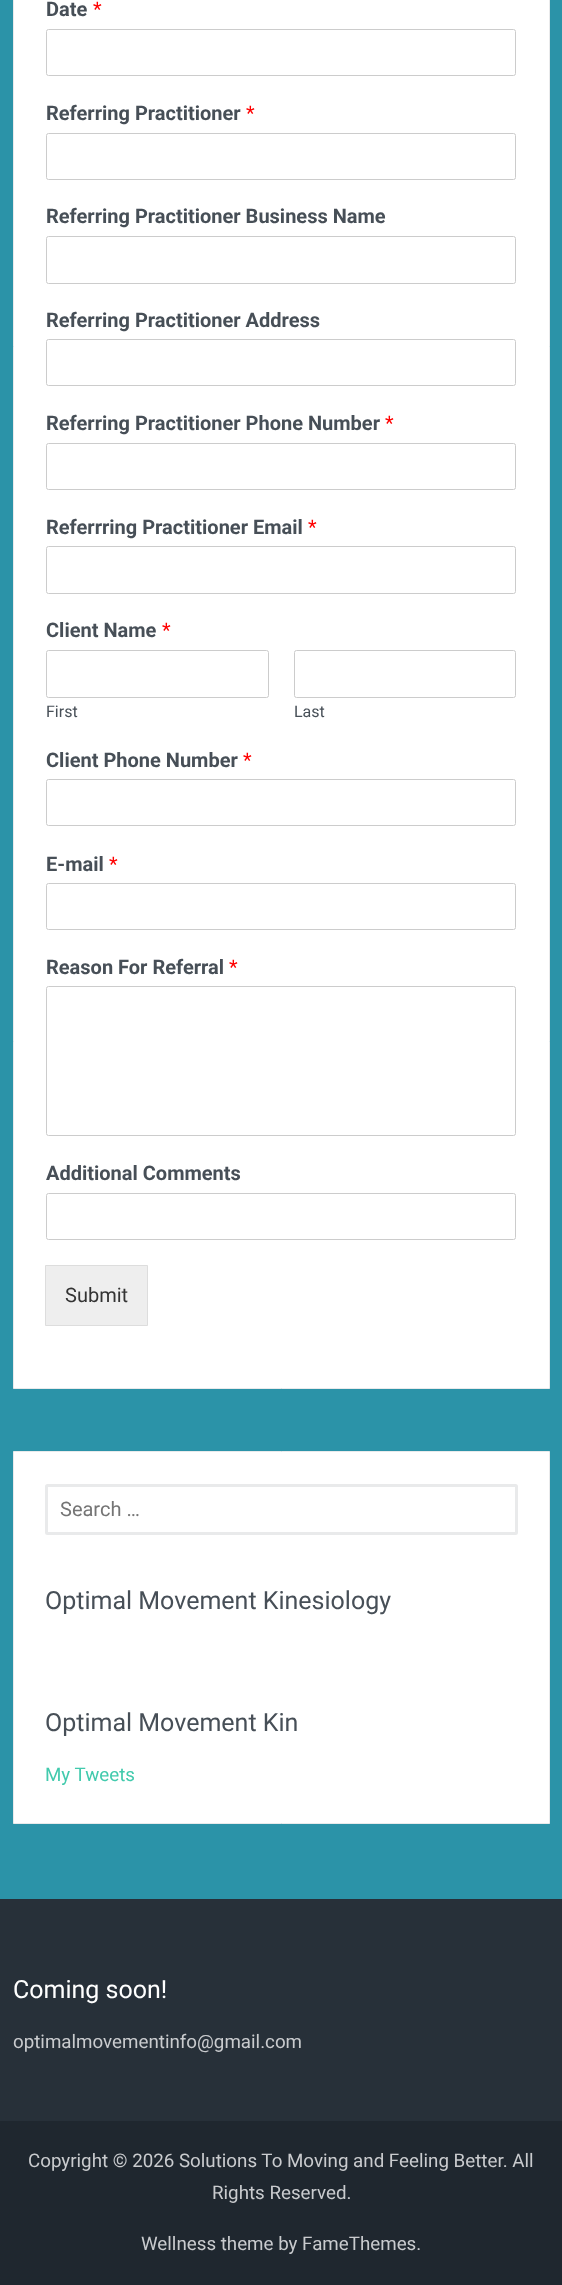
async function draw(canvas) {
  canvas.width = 562
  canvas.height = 2285
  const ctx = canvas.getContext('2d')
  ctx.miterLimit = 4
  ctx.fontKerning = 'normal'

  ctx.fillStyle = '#2b93a8'
  ctx.fillRect(0, 0, 562, 2285)
  ctx.fillStyle = '#fff'
  ctx.beginPath()
  ctx.rect(13.5, -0.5, 536, 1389)
  ctx.fill()
  ctx.strokeStyle = '#e9eaeb'
  ctx.stroke()
  ctx.font = 'bold 20px Roboto'
  ctx.fillStyle = '#474f57'
  ctx.fillText('Date', 46, 16)
  ctx.font = '20px Roboto'
  ctx.fillStyle = '#f00'
  ctx.fillText('*', 93, 16)
  ctx.beginPath()
  ctx.roundRect(46.5, 29.5, 469, 46, 2)
  ctx.strokeStyle = '#ccc'
  ctx.stroke()
  ctx.font = 'bold 20px Roboto'
  ctx.fillStyle = '#474f57'
  ctx.fillText('Referring Practitioner', 46, 120)
  ctx.font = '20px Roboto'
  ctx.fillStyle = '#f00'
  ctx.fillText('*', 246, 120)
  ctx.beginPath()
  ctx.roundRect(46.5, 133.5, 469, 46, 2)
  ctx.stroke()
  ctx.font = 'bold 20px Roboto'
  ctx.fillStyle = '#474f57'
  ctx.fillText('Referring Practitioner Business Name', 46, 223)
  ctx.beginPath()
  ctx.roundRect(46.5, 236.5, 469, 47, 2)
  ctx.stroke()
  ctx.fillText('Referring Practitioner Address', 46, 327)
  ctx.beginPath()
  ctx.roundRect(46.5, 339.5, 469, 46, 2)
  ctx.stroke()
  ctx.fillText('Referring Practitioner Phone Number', 46, 430)
  ctx.font = '20px Roboto'
  ctx.fillStyle = '#f00'
  ctx.fillText('*', 385, 430)
  ctx.beginPath()
  ctx.roundRect(46.5, 443.5, 469, 46, 2)
  ctx.stroke()
  ctx.font = 'bold 20px Roboto'
  ctx.fillStyle = '#474f57'
  ctx.fillText('Referrring Practitioner Email', 46, 534)
  ctx.font = '20px Roboto'
  ctx.fillStyle = '#f00'
  ctx.fillText('*', 308, 534)
  ctx.beginPath()
  ctx.roundRect(46.5, 546.5, 469, 47, 2)
  ctx.stroke()
  ctx.font = 'bold 20px Roboto'
  ctx.fillStyle = '#474f57'
  ctx.fillText('Client Name', 46, 637)
  ctx.font = '20px Roboto'
  ctx.fillStyle = '#f00'
  ctx.fillText('*', 162, 637)
  ctx.beginPath()
  ctx.roundRect(46.5, 650.5, 222, 47, 2)
  ctx.stroke()
  ctx.font = '16px Roboto'
  ctx.fillStyle = '#474f57'
  ctx.fillText('First', 46, 717)
  ctx.beginPath()
  ctx.roundRect(294.5, 650.5, 221, 47, 2)
  ctx.stroke()
  ctx.fillText('Last', 294, 717)
  ctx.font = 'bold 20px Roboto'
  ctx.fillText('Client Phone Number', 46, 767)
  ctx.font = '20px Roboto'
  ctx.fillStyle = '#f00'
  ctx.fillText('*', 243, 767)
  ctx.beginPath()
  ctx.roundRect(46.5, 779.5, 469, 46, 2)
  ctx.stroke()
  ctx.font = 'bold 20px Roboto'
  ctx.fillStyle = '#474f57'
  ctx.fillText('E-mail', 46, 871)
  ctx.font = '20px Roboto'
  ctx.fillStyle = '#f00'
  ctx.fillText('*', 109, 871)
  ctx.beginPath()
  ctx.roundRect(46.5, 883.5, 469, 46, 2)
  ctx.stroke()
  ctx.font = 'bold 20px Roboto'
  ctx.fillStyle = '#474f57'
  ctx.fillText('Reason For Referral', 46, 974)
  ctx.font = '20px Roboto'
  ctx.fillStyle = '#f00'
  ctx.fillText('*', 229, 974)
  ctx.beginPath()
  ctx.roundRect(46.5, 986.5, 469, 149, 2)
  ctx.stroke()
  ctx.font = 'bold 20px Roboto'
  ctx.fillStyle = '#474f57'
  ctx.fillText('Additional Comments', 46, 1180)
  ctx.beginPath()
  ctx.roundRect(46.5, 1193.5, 469, 46, 2)
  ctx.stroke()
  ctx.fillStyle = '#eee'
  ctx.beginPath()
  ctx.rect(45.5, 1265.5, 102, 60)
  ctx.fill()
  ctx.strokeStyle = '#ddd'
  ctx.stroke()
  ctx.font = '20px Roboto'
  ctx.fillStyle = '#333'
  ctx.fillText('Submit', 65, 1302)
  ctx.fillStyle = '#fff'
  ctx.beginPath()
  ctx.rect(13.5, 1451.5, 536, 372)
  ctx.fill()
  ctx.strokeStyle = '#e9eaeb'
  ctx.stroke()
  ctx.beginPath()
  ctx.roundRect(46.5, 1485.5, 470, 48, 1)
  ctx.lineWidth = 3
  ctx.stroke()
  ctx.fillStyle = '#757575'
  ctx.fillText('Search …', 60, 1516)
  ctx.font = '25px Roboto'
  ctx.fillStyle = '#474f57'
  ctx.fillText('Optimal Movement Kinesiology', 45, 1609)
  ctx.fillText('Optimal Movement Kin', 45, 1731)
  ctx.font = '18.75px Roboto'
  ctx.fillStyle = '#42caad'
  ctx.fillText('My Tweets', 45, 1781)
  ctx.fillStyle = '#273039'
  ctx.fillRect(0, 1899, 562, 222)
  ctx.font = '25px Roboto'
  ctx.fillStyle = '#fff'
  ctx.fillText('Coming soon!', 13, 1998)
  ctx.font = '18.75px Roboto'
  ctx.fillStyle = '#c9cbce'
  ctx.fillText('optimalmovementinfo@gmail.com', 13, 2048)
  ctx.fillStyle = '#1f272f'
  ctx.fillRect(0, 2121, 562, 164)
  ctx.fillStyle = '#c9cbce'
  ctx.fillText('Copyright © 2026 Solutions To Moving and Feeling Better. All', 28, 2167)
  ctx.fillText('Rights Reserved.', 212, 2199)
  ctx.fillText('Wellness theme by FameThemes.', 141, 2250)
}

draw(document.querySelector('canvas'))
